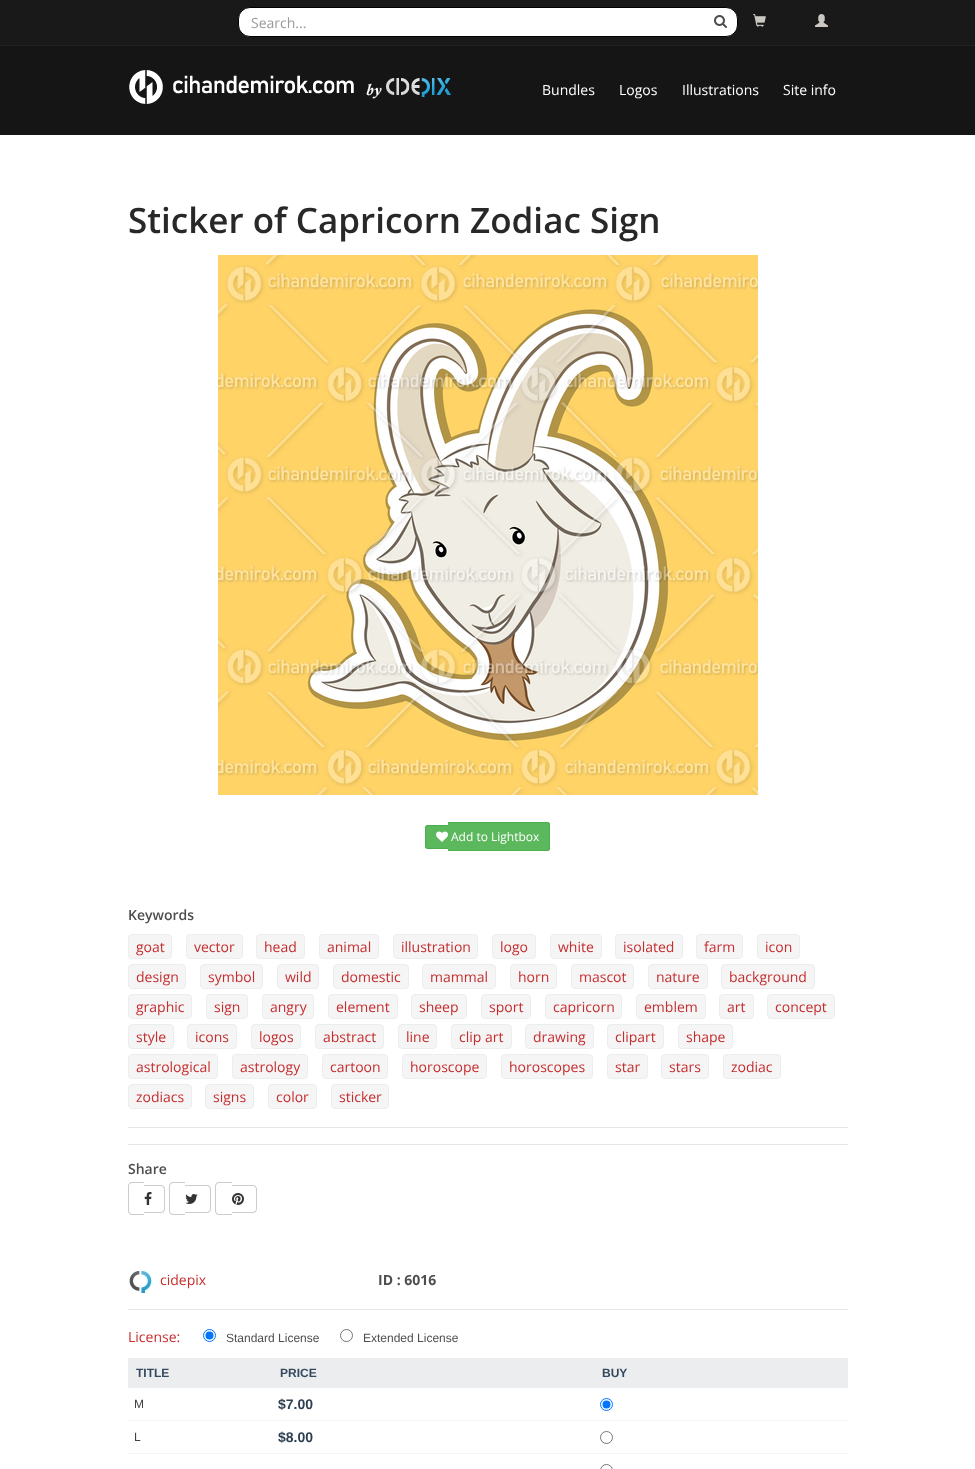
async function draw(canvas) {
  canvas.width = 975
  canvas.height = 1469
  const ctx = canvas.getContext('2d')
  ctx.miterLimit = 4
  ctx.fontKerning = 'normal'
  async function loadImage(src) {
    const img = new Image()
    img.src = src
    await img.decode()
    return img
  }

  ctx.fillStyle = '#fff'
  ctx.fillRect(0, 0, 975, 1469)
  ctx.fillStyle = '#191919'
  ctx.fillRect(0, 0, 975, 45)
  ctx.fillStyle = '#222'
  ctx.fillRect(0, 45, 975, 1)
  ctx.fillStyle = '#fff'
  ctx.beginPath()
  ctx.roundRect(238.5, 7.5, 499, 29, 11.5)
  ctx.fill()
  ctx.strokeStyle = '#000'
  ctx.stroke()
  ctx.font = '14px Open Sans'
  ctx.fillStyle = '#999'
  ctx.fillText('Search...', 251, 28)
  ctx.drawImage(await loadImage('image0.png'), 714, 15, 13, 13)
  ctx.drawImage(await loadImage('image1.png'), 753, 14, 13, 13)
  ctx.drawImage(await loadImage('image2.png'), 815, 14, 13, 13)
  ctx.fillStyle = '#151515'
  ctx.fillRect(0, 46, 975, 89)
  ctx.drawImage(await loadImage('image3.png'), 129, 70, 322, 34)
  ctx.fillStyle = '#fff'
  ctx.fillText('Bundles', 542, 95)
  ctx.fillText('Logos', 619, 95)
  ctx.fillText('Illustrations', 682, 95)
  ctx.fillText('Site info', 783, 95)
  ctx.font = '600 35px Open Sans'
  ctx.fillStyle = '#292828'
  ctx.fillText('Sticker of Capricorn Zodiac Sign', 128, 233)
  ctx.drawImage(await loadImage('image4.png'), 218, 255, 540, 540)
  ctx.fillStyle = '#5cb85c'
  ctx.beginPath()
  ctx.roundRect(425, 825, 23, 24, [3, 0, 0, 3])
  ctx.fill()
  ctx.fillStyle = '#4cae4c'
  ctx.beginPath()
  ctx.moveTo(428, 825)
  ctx.lineTo(448, 825)
  ctx.lineTo(448, 849)
  ctx.lineTo(428, 849)
  ctx.bezierCurveTo(426.5, 849, 425, 847.5, 425, 846)
  ctx.lineTo(425, 828)
  ctx.bezierCurveTo(425, 826.5, 426.5, 825, 428, 825)
  ctx.closePath()
  ctx.moveTo(428, 826)
  ctx.lineTo(448, 826)
  ctx.lineTo(448, 848)
  ctx.lineTo(428, 848)
  ctx.bezierCurveTo(427, 848, 426, 847, 426, 846)
  ctx.lineTo(426, 828)
  ctx.bezierCurveTo(426, 827, 427, 826, 428, 826)
  ctx.closePath()
  ctx.fill('evenodd')
  ctx.fillStyle = '#5cb85c'
  ctx.beginPath()
  ctx.roundRect(448, 822, 102, 29, [0, 3, 3, 0])
  ctx.fill()
  ctx.fillStyle = '#4cae4c'
  ctx.beginPath()
  ctx.moveTo(448, 822)
  ctx.lineTo(547, 822)
  ctx.bezierCurveTo(549, 822, 550, 823, 550, 825)
  ctx.lineTo(550, 848)
  ctx.bezierCurveTo(550, 850, 549, 851, 547, 851)
  ctx.lineTo(448, 851)
  ctx.closePath()
  ctx.moveTo(448, 823)
  ctx.lineTo(547, 823)
  ctx.bezierCurveTo(548, 823, 549, 824, 549, 825)
  ctx.lineTo(549, 848)
  ctx.bezierCurveTo(549, 849, 548, 850, 547, 850)
  ctx.lineTo(448, 850)
  ctx.closePath()
  ctx.fill('evenodd')
  ctx.drawImage(await loadImage('image5.png'), 436, 831, 12, 11)
  ctx.font = '12px Open Sans'
  ctx.fillStyle = '#fff'
  ctx.fillText('Add to Lightbox', 451, 841)
  ctx.font = '600 14px Open Sans'
  ctx.fillStyle = '#4e4e4e'
  ctx.fillText('Keywords', 128, 920)
  ctx.fillStyle = '#f5f5f5'
  ctx.beginPath()
  ctx.roundRect(128.5, 934.5, 43, 24, 3.5)
  ctx.fill()
  ctx.strokeStyle = '#ebedef'
  ctx.stroke()
  ctx.font = '14px Open Sans'
  ctx.fillStyle = '#c52d2f'
  ctx.fillText('goat', 136, 952)
  ctx.fillStyle = '#f5f5f5'
  ctx.beginPath()
  ctx.roundRect(186.5, 934.5, 56, 24, 3.5)
  ctx.fill()
  ctx.stroke()
  ctx.fillStyle = '#c52d2f'
  ctx.fillText('vector', 194, 952)
  ctx.fillStyle = '#f5f5f5'
  ctx.beginPath()
  ctx.roundRect(256.5, 934.5, 48, 24, 3.5)
  ctx.fill()
  ctx.stroke()
  ctx.fillStyle = '#c52d2f'
  ctx.fillText('head', 264, 952)
  ctx.fillStyle = '#f5f5f5'
  ctx.beginPath()
  ctx.roundRect(319.5, 934.5, 59, 24, 3.5)
  ctx.fill()
  ctx.stroke()
  ctx.fillStyle = '#c52d2f'
  ctx.fillText('animal', 327, 952)
  ctx.fillStyle = '#f5f5f5'
  ctx.beginPath()
  ctx.roundRect(393.5, 934.5, 84, 24, 3.5)
  ctx.fill()
  ctx.stroke()
  ctx.fillStyle = '#c52d2f'
  ctx.fillText('illustration', 401, 952)
  ctx.fillStyle = '#f5f5f5'
  ctx.beginPath()
  ctx.roundRect(492.5, 934.5, 43, 24, 3.5)
  ctx.fill()
  ctx.stroke()
  ctx.fillStyle = '#c52d2f'
  ctx.fillText('logo', 500, 952)
  ctx.fillStyle = '#f5f5f5'
  ctx.beginPath()
  ctx.roundRect(550.5, 934.5, 51, 24, 3.5)
  ctx.fill()
  ctx.stroke()
  ctx.fillStyle = '#c52d2f'
  ctx.fillText('white', 558, 952)
  ctx.fillStyle = '#f5f5f5'
  ctx.beginPath()
  ctx.roundRect(615.5, 934.5, 67, 24, 3.5)
  ctx.fill()
  ctx.stroke()
  ctx.fillStyle = '#c52d2f'
  ctx.fillText('isolated', 623, 952)
  ctx.fillStyle = '#f5f5f5'
  ctx.beginPath()
  ctx.roundRect(696.5, 934.5, 46, 24, 3.5)
  ctx.fill()
  ctx.stroke()
  ctx.fillStyle = '#c52d2f'
  ctx.fillText('farm', 704, 952)
  ctx.fillStyle = '#f5f5f5'
  ctx.beginPath()
  ctx.roundRect(757.5, 934.5, 42, 24, 3.5)
  ctx.fill()
  ctx.stroke()
  ctx.fillStyle = '#c52d2f'
  ctx.fillText('icon', 765, 952)
  ctx.fillStyle = '#f5f5f5'
  ctx.beginPath()
  ctx.roundRect(128.5, 964.5, 57, 24, 3.5)
  ctx.fill()
  ctx.stroke()
  ctx.fillStyle = '#c52d2f'
  ctx.fillText('design', 136, 982)
  ctx.fillStyle = '#f5f5f5'
  ctx.beginPath()
  ctx.roundRect(200.5, 964.5, 62, 24, 3.5)
  ctx.fill()
  ctx.stroke()
  ctx.fillStyle = '#c52d2f'
  ctx.fillText('symbol', 208, 982)
  ctx.fillStyle = '#f5f5f5'
  ctx.beginPath()
  ctx.roundRect(277.5, 964.5, 41, 24, 3.5)
  ctx.fill()
  ctx.stroke()
  ctx.fillStyle = '#c52d2f'
  ctx.fillText('wild', 285, 982)
  ctx.fillStyle = '#f5f5f5'
  ctx.beginPath()
  ctx.roundRect(333.5, 964.5, 75, 24, 3.5)
  ctx.fill()
  ctx.stroke()
  ctx.fillStyle = '#c52d2f'
  ctx.fillText('domestic', 341, 982)
  ctx.fillStyle = '#f5f5f5'
  ctx.beginPath()
  ctx.roundRect(422.5, 964.5, 73, 24, 3.5)
  ctx.fill()
  ctx.stroke()
  ctx.fillStyle = '#c52d2f'
  ctx.fillText('mammal', 430, 982)
  ctx.fillStyle = '#f5f5f5'
  ctx.beginPath()
  ctx.roundRect(510.5, 964.5, 46, 24, 3.5)
  ctx.fill()
  ctx.stroke()
  ctx.fillStyle = '#c52d2f'
  ctx.fillText('horn', 518, 982)
  ctx.fillStyle = '#f5f5f5'
  ctx.beginPath()
  ctx.roundRect(571.5, 964.5, 62, 24, 3.5)
  ctx.fill()
  ctx.stroke()
  ctx.fillStyle = '#c52d2f'
  ctx.fillText('mascot', 579, 982)
  ctx.fillStyle = '#f5f5f5'
  ctx.beginPath()
  ctx.roundRect(648.5, 964.5, 59, 24, 3.5)
  ctx.fill()
  ctx.stroke()
  ctx.fillStyle = '#c52d2f'
  ctx.fillText('nature', 656, 982)
  ctx.fillStyle = '#f5f5f5'
  ctx.beginPath()
  ctx.roundRect(721.5, 964.5, 93, 24, 3.5)
  ctx.fill()
  ctx.stroke()
  ctx.fillStyle = '#c52d2f'
  ctx.fillText('background', 729, 982)
  ctx.fillStyle = '#f5f5f5'
  ctx.beginPath()
  ctx.roundRect(128.5, 994.5, 63, 24, 3.5)
  ctx.fill()
  ctx.stroke()
  ctx.fillStyle = '#c52d2f'
  ctx.fillText('graphic', 136, 1012)
  ctx.fillStyle = '#f5f5f5'
  ctx.beginPath()
  ctx.roundRect(206.5, 994.5, 41, 24, 3.5)
  ctx.fill()
  ctx.stroke()
  ctx.fillStyle = '#c52d2f'
  ctx.fillText('sign', 214, 1012)
  ctx.fillStyle = '#f5f5f5'
  ctx.beginPath()
  ctx.roundRect(262.5, 994.5, 51, 24, 3.5)
  ctx.fill()
  ctx.stroke()
  ctx.fillStyle = '#c52d2f'
  ctx.fillText('angry', 270, 1012)
  ctx.fillStyle = '#f5f5f5'
  ctx.beginPath()
  ctx.roundRect(328.5, 994.5, 69, 24, 3.5)
  ctx.fill()
  ctx.stroke()
  ctx.fillStyle = '#c52d2f'
  ctx.fillText('element', 336, 1012)
  ctx.fillStyle = '#f5f5f5'
  ctx.beginPath()
  ctx.roundRect(411.5, 994.5, 55, 24, 3.5)
  ctx.fill()
  ctx.stroke()
  ctx.fillStyle = '#c52d2f'
  ctx.fillText('sheep', 419, 1012)
  ctx.fillStyle = '#f5f5f5'
  ctx.beginPath()
  ctx.roundRect(481.5, 994.5, 49, 24, 3.5)
  ctx.fill()
  ctx.stroke()
  ctx.fillStyle = '#c52d2f'
  ctx.fillText('sport', 489, 1012)
  ctx.fillStyle = '#f5f5f5'
  ctx.beginPath()
  ctx.roundRect(545.5, 994.5, 76, 24, 3.5)
  ctx.fill()
  ctx.stroke()
  ctx.fillStyle = '#c52d2f'
  ctx.fillText('capricorn', 553, 1012)
  ctx.fillStyle = '#f5f5f5'
  ctx.beginPath()
  ctx.roundRect(636.5, 994.5, 69, 24, 3.5)
  ctx.fill()
  ctx.stroke()
  ctx.fillStyle = '#c52d2f'
  ctx.fillText('emblem', 644, 1012)
  ctx.fillStyle = '#f5f5f5'
  ctx.beginPath()
  ctx.roundRect(719.5, 994.5, 34, 24, 3.5)
  ctx.fill()
  ctx.stroke()
  ctx.fillStyle = '#c52d2f'
  ctx.fillText('art', 727, 1012)
  ctx.fillStyle = '#f5f5f5'
  ctx.beginPath()
  ctx.roundRect(767.5, 994.5, 67, 24, 3.5)
  ctx.fill()
  ctx.stroke()
  ctx.fillStyle = '#c52d2f'
  ctx.fillText('concept', 775, 1012)
  ctx.fillStyle = '#f5f5f5'
  ctx.beginPath()
  ctx.roundRect(128.5, 1024.5, 45, 24, 3.5)
  ctx.fill()
  ctx.stroke()
  ctx.fillStyle = '#c52d2f'
  ctx.fillText('style', 136, 1042)
  ctx.fillStyle = '#f5f5f5'
  ctx.beginPath()
  ctx.roundRect(187.5, 1024.5, 49, 24, 3.5)
  ctx.fill()
  ctx.stroke()
  ctx.fillStyle = '#c52d2f'
  ctx.fillText('icons', 195, 1042)
  ctx.fillStyle = '#f5f5f5'
  ctx.beginPath()
  ctx.roundRect(251.5, 1024.5, 49, 24, 3.5)
  ctx.fill()
  ctx.stroke()
  ctx.fillStyle = '#c52d2f'
  ctx.fillText('logos', 259, 1042)
  ctx.fillStyle = '#f5f5f5'
  ctx.beginPath()
  ctx.roundRect(315.5, 1024.5, 68, 24, 3.5)
  ctx.fill()
  ctx.stroke()
  ctx.fillStyle = '#c52d2f'
  ctx.fillText('abstract', 323, 1042)
  ctx.fillStyle = '#f5f5f5'
  ctx.beginPath()
  ctx.roundRect(398.5, 1024.5, 38, 24, 3.5)
  ctx.fill()
  ctx.stroke()
  ctx.fillStyle = '#c52d2f'
  ctx.fillText('line', 406, 1042)
  ctx.fillStyle = '#f5f5f5'
  ctx.beginPath()
  ctx.roundRect(451.5, 1024.5, 60, 24, 3.5)
  ctx.fill()
  ctx.stroke()
  ctx.fillStyle = '#c52d2f'
  ctx.fillText('clip art', 459, 1042)
  ctx.fillStyle = '#f5f5f5'
  ctx.beginPath()
  ctx.roundRect(525.5, 1024.5, 68, 24, 3.5)
  ctx.fill()
  ctx.stroke()
  ctx.fillStyle = '#c52d2f'
  ctx.fillText('drawing', 533, 1042)
  ctx.fillStyle = '#f5f5f5'
  ctx.beginPath()
  ctx.roundRect(607.5, 1024.5, 56, 24, 3.5)
  ctx.fill()
  ctx.stroke()
  ctx.fillStyle = '#c52d2f'
  ctx.fillText('clipart', 615, 1042)
  ctx.fillStyle = '#f5f5f5'
  ctx.beginPath()
  ctx.roundRect(678.5, 1024.5, 54, 24, 3.5)
  ctx.fill()
  ctx.stroke()
  ctx.fillStyle = '#c52d2f'
  ctx.fillText('shape', 686, 1042)
  ctx.fillStyle = '#f5f5f5'
  ctx.beginPath()
  ctx.roundRect(128.5, 1054.5, 89, 24, 3.5)
  ctx.fill()
  ctx.stroke()
  ctx.fillStyle = '#c52d2f'
  ctx.fillText('astrological', 136, 1072)
  ctx.fillStyle = '#f5f5f5'
  ctx.beginPath()
  ctx.roundRect(232.5, 1054.5, 75, 24, 3.5)
  ctx.fill()
  ctx.stroke()
  ctx.fillStyle = '#c52d2f'
  ctx.fillText('astrology', 240, 1072)
  ctx.fillStyle = '#f5f5f5'
  ctx.beginPath()
  ctx.roundRect(322.5, 1054.5, 65, 24, 3.5)
  ctx.fill()
  ctx.stroke()
  ctx.fillStyle = '#c52d2f'
  ctx.fillText('cartoon', 330, 1072)
  ctx.fillStyle = '#f5f5f5'
  ctx.beginPath()
  ctx.roundRect(402.5, 1054.5, 84, 24, 3.5)
  ctx.fill()
  ctx.stroke()
  ctx.fillStyle = '#c52d2f'
  ctx.fillText('horoscope', 410, 1072)
  ctx.fillStyle = '#f5f5f5'
  ctx.beginPath()
  ctx.roundRect(501.5, 1054.5, 91, 24, 3.5)
  ctx.fill()
  ctx.stroke()
  ctx.fillStyle = '#c52d2f'
  ctx.fillText('horoscopes', 509, 1072)
  ctx.fillStyle = '#f5f5f5'
  ctx.beginPath()
  ctx.roundRect(607.5, 1054.5, 40, 24, 3.5)
  ctx.fill()
  ctx.stroke()
  ctx.fillStyle = '#c52d2f'
  ctx.fillText('star', 615, 1072)
  ctx.fillStyle = '#f5f5f5'
  ctx.beginPath()
  ctx.roundRect(661.5, 1054.5, 47, 24, 3.5)
  ctx.fill()
  ctx.stroke()
  ctx.fillStyle = '#c52d2f'
  ctx.fillText('stars', 669, 1072)
  ctx.fillStyle = '#f5f5f5'
  ctx.beginPath()
  ctx.roundRect(723.5, 1054.5, 57, 24, 3.5)
  ctx.fill()
  ctx.stroke()
  ctx.fillStyle = '#c52d2f'
  ctx.fillText('zodiac', 731, 1072)
  ctx.fillStyle = '#f5f5f5'
  ctx.beginPath()
  ctx.roundRect(128.5, 1084.5, 63, 24, 3.5)
  ctx.fill()
  ctx.stroke()
  ctx.fillStyle = '#c52d2f'
  ctx.fillText('zodiacs', 136, 1102)
  ctx.fillStyle = '#f5f5f5'
  ctx.beginPath()
  ctx.roundRect(205.5, 1084.5, 48, 24, 3.5)
  ctx.fill()
  ctx.stroke()
  ctx.fillStyle = '#c52d2f'
  ctx.fillText('signs', 213, 1102)
  ctx.fillStyle = '#f5f5f5'
  ctx.beginPath()
  ctx.roundRect(268.5, 1084.5, 48, 24, 3.5)
  ctx.fill()
  ctx.stroke()
  ctx.fillStyle = '#c52d2f'
  ctx.fillText('color', 276, 1102)
  ctx.fillStyle = '#f5f5f5'
  ctx.beginPath()
  ctx.roundRect(331.5, 1084.5, 57, 24, 3.5)
  ctx.fill()
  ctx.stroke()
  ctx.fillStyle = '#c52d2f'
  ctx.fillText('sticker', 339, 1102)
  ctx.fillStyle = '#e5e5e5'
  ctx.fillRect(128, 1127, 720, 1)
  ctx.fillRect(128, 1144, 720, 1)
  ctx.font = '600 14px Open Sans'
  ctx.fillStyle = '#4e4e4e'
  ctx.fillText('Share', 128, 1174)
  ctx.fillStyle = '#ccc'
  ctx.beginPath()
  ctx.moveTo(132, 1182)
  ctx.lineTo(144, 1182)
  ctx.lineTo(144, 1215)
  ctx.lineTo(132, 1215)
  ctx.bezierCurveTo(130, 1215, 128, 1213, 128, 1211)
  ctx.lineTo(128, 1186)
  ctx.bezierCurveTo(128, 1184, 130, 1182, 132, 1182)
  ctx.closePath()
  ctx.moveTo(132, 1183)
  ctx.lineTo(144, 1183)
  ctx.lineTo(144, 1214)
  ctx.lineTo(132, 1214)
  ctx.bezierCurveTo(130.5, 1214, 129, 1212.5, 129, 1211)
  ctx.lineTo(129, 1186)
  ctx.bezierCurveTo(129, 1184.5, 130.5, 1183, 132, 1183)
  ctx.closePath()
  ctx.moveTo(144, 1185)
  ctx.lineTo(161, 1185)
  ctx.bezierCurveTo(163, 1185, 165, 1187, 165, 1189)
  ctx.lineTo(165, 1209)
  ctx.bezierCurveTo(165, 1211, 163, 1213, 161, 1213)
  ctx.lineTo(144, 1213)
  ctx.closePath()
  ctx.moveTo(144, 1186)
  ctx.lineTo(161, 1186)
  ctx.bezierCurveTo(162.5, 1186, 164, 1187.5, 164, 1189)
  ctx.lineTo(164, 1209)
  ctx.bezierCurveTo(164, 1210.5, 162.5, 1212, 161, 1212)
  ctx.lineTo(144, 1212)
  ctx.closePath()
  ctx.moveTo(173, 1182)
  ctx.lineTo(185, 1182)
  ctx.lineTo(185, 1215)
  ctx.lineTo(173, 1215)
  ctx.bezierCurveTo(171, 1215, 169, 1213, 169, 1211)
  ctx.lineTo(169, 1186)
  ctx.bezierCurveTo(169, 1184, 171, 1182, 173, 1182)
  ctx.closePath()
  ctx.moveTo(173, 1183)
  ctx.lineTo(185, 1183)
  ctx.lineTo(185, 1214)
  ctx.lineTo(173, 1214)
  ctx.bezierCurveTo(171.5, 1214, 170, 1212.5, 170, 1211)
  ctx.lineTo(170, 1186)
  ctx.bezierCurveTo(170, 1184.5, 171.5, 1183, 173, 1183)
  ctx.closePath()
  ctx.fill('evenodd')
  ctx.drawImage(await loadImage('image6.png'), 144, 1192, 8, 13)
  ctx.beginPath()
  ctx.moveTo(185, 1185)
  ctx.lineTo(207, 1185)
  ctx.bezierCurveTo(209, 1185, 211, 1187, 211, 1189)
  ctx.lineTo(211, 1209)
  ctx.bezierCurveTo(211, 1211, 209, 1213, 207, 1213)
  ctx.lineTo(185, 1213)
  ctx.closePath()
  ctx.moveTo(185, 1186)
  ctx.lineTo(207, 1186)
  ctx.bezierCurveTo(208.5, 1186, 210, 1187.5, 210, 1189)
  ctx.lineTo(210, 1209)
  ctx.bezierCurveTo(210, 1210.5, 208.5, 1212, 207, 1212)
  ctx.lineTo(185, 1212)
  ctx.closePath()
  ctx.moveTo(219, 1182)
  ctx.lineTo(232, 1182)
  ctx.lineTo(232, 1215)
  ctx.lineTo(219, 1215)
  ctx.bezierCurveTo(217, 1215, 215, 1213, 215, 1211)
  ctx.lineTo(215, 1186)
  ctx.bezierCurveTo(215, 1184, 217, 1182, 219, 1182)
  ctx.closePath()
  ctx.moveTo(219, 1183)
  ctx.lineTo(232, 1183)
  ctx.lineTo(232, 1214)
  ctx.lineTo(219, 1214)
  ctx.bezierCurveTo(217.5, 1214, 216, 1212.5, 216, 1211)
  ctx.lineTo(216, 1186)
  ctx.bezierCurveTo(216, 1184.5, 217.5, 1183, 219, 1183)
  ctx.closePath()
  ctx.fill('evenodd')
  ctx.drawImage(await loadImage('image7.png'), 185, 1194, 13, 10)
  ctx.beginPath()
  ctx.moveTo(232, 1185)
  ctx.lineTo(253, 1185)
  ctx.bezierCurveTo(255, 1185, 257, 1187, 257, 1189)
  ctx.lineTo(257, 1209)
  ctx.bezierCurveTo(257, 1211, 255, 1213, 253, 1213)
  ctx.lineTo(232, 1213)
  ctx.closePath()
  ctx.moveTo(232, 1186)
  ctx.lineTo(253, 1186)
  ctx.bezierCurveTo(254.5, 1186, 256, 1187.5, 256, 1189)
  ctx.lineTo(256, 1209)
  ctx.bezierCurveTo(256, 1210.5, 254.5, 1212, 253, 1212)
  ctx.lineTo(232, 1212)
  ctx.closePath()
  ctx.fill('evenodd')
  ctx.drawImage(await loadImage('image8.png'), 232, 1193, 12, 12)
  ctx.drawImage(await loadImage('image9.png'), 129, 1270, 24, 24)
  ctx.font = '14px Open Sans'
  ctx.fillStyle = '#c52d2f'
  ctx.fillText('cidepix', 160, 1285)
  ctx.font = 'bold 14px Open Sans'
  ctx.fillStyle = '#4e4e4e'
  ctx.fillText('ID : 6016', 378, 1285)
  ctx.fillStyle = '#e5e5e5'
  ctx.fillRect(128, 1309, 720, 1)
  ctx.font = '14px Open Sans'
  ctx.fillStyle = '#c52d2f'
  ctx.fillText('License:', 128, 1342)
  ctx.beginPath()
  ctx.arc(209.5, 1335.5, 6, 0, 2 * Math.PI)
  ctx.strokeStyle = '#0075ff'
  ctx.stroke()
  ctx.fillStyle = '#0075ff'
  ctx.beginPath()
  ctx.arc(209.5, 1335.5, 4, 0, 2 * Math.PI)
  ctx.fill()
  ctx.font = '12px Liberation Sans'
  ctx.fillStyle = '#4e4e4e'
  ctx.fillText('Standard License', 226, 1342)
  ctx.beginPath()
  ctx.arc(346.5, 1335.5, 6, 0, 2 * Math.PI)
  ctx.strokeStyle = '#767676'
  ctx.stroke()
  ctx.fillText('Extended License', 363, 1342)
  ctx.fillStyle = '#ebedef'
  ctx.fillRect(128, 1358, 720, 30)
  ctx.font = 'bold 12px Liberation Sans'
  ctx.fillStyle = '#34495e'
  ctx.fillText('TITLE', 136, 1377)
  ctx.fillText('PRICE', 280, 1377)
  ctx.fillText('BUY', 602, 1377)
  ctx.fillStyle = '#f5f5f5'
  ctx.fillRect(127, 1420, 721, 1)
  ctx.beginPath()
  ctx.arc(606.5, 1404.5, 6, 0, 2 * Math.PI)
  ctx.strokeStyle = '#0075ff'
  ctx.stroke()
  ctx.fillStyle = '#0075ff'
  ctx.beginPath()
  ctx.arc(606.5, 1404.5, 4, 0, 2 * Math.PI)
  ctx.fill()
  ctx.font = '12px Liberation Sans'
  ctx.fillStyle = '#424242'
  ctx.fillText('M', 134, 1408)
  ctx.font = 'bold 14px Liberation Sans'
  ctx.fillStyle = '#2c3e50'
  ctx.fillText('$7.00', 278, 1409)
  ctx.fillStyle = '#f5f5f5'
  ctx.fillRect(127, 1453, 721, 1)
  ctx.beginPath()
  ctx.arc(606.5, 1437.5, 6, 0, 2 * Math.PI)
  ctx.strokeStyle = '#767676'
  ctx.stroke()
  ctx.font = '12px Liberation Sans'
  ctx.fillStyle = '#424242'
  ctx.fillText('L', 134, 1441)
  ctx.font = 'bold 14px Liberation Sans'
  ctx.fillStyle = '#2c3e50'
  ctx.fillText('$8.00', 278, 1442)
  ctx.beginPath()
  ctx.arc(606.5, 1470.5, 6, 0, 2 * Math.PI)
  ctx.stroke()
}

draw(document.querySelector('canvas'))
